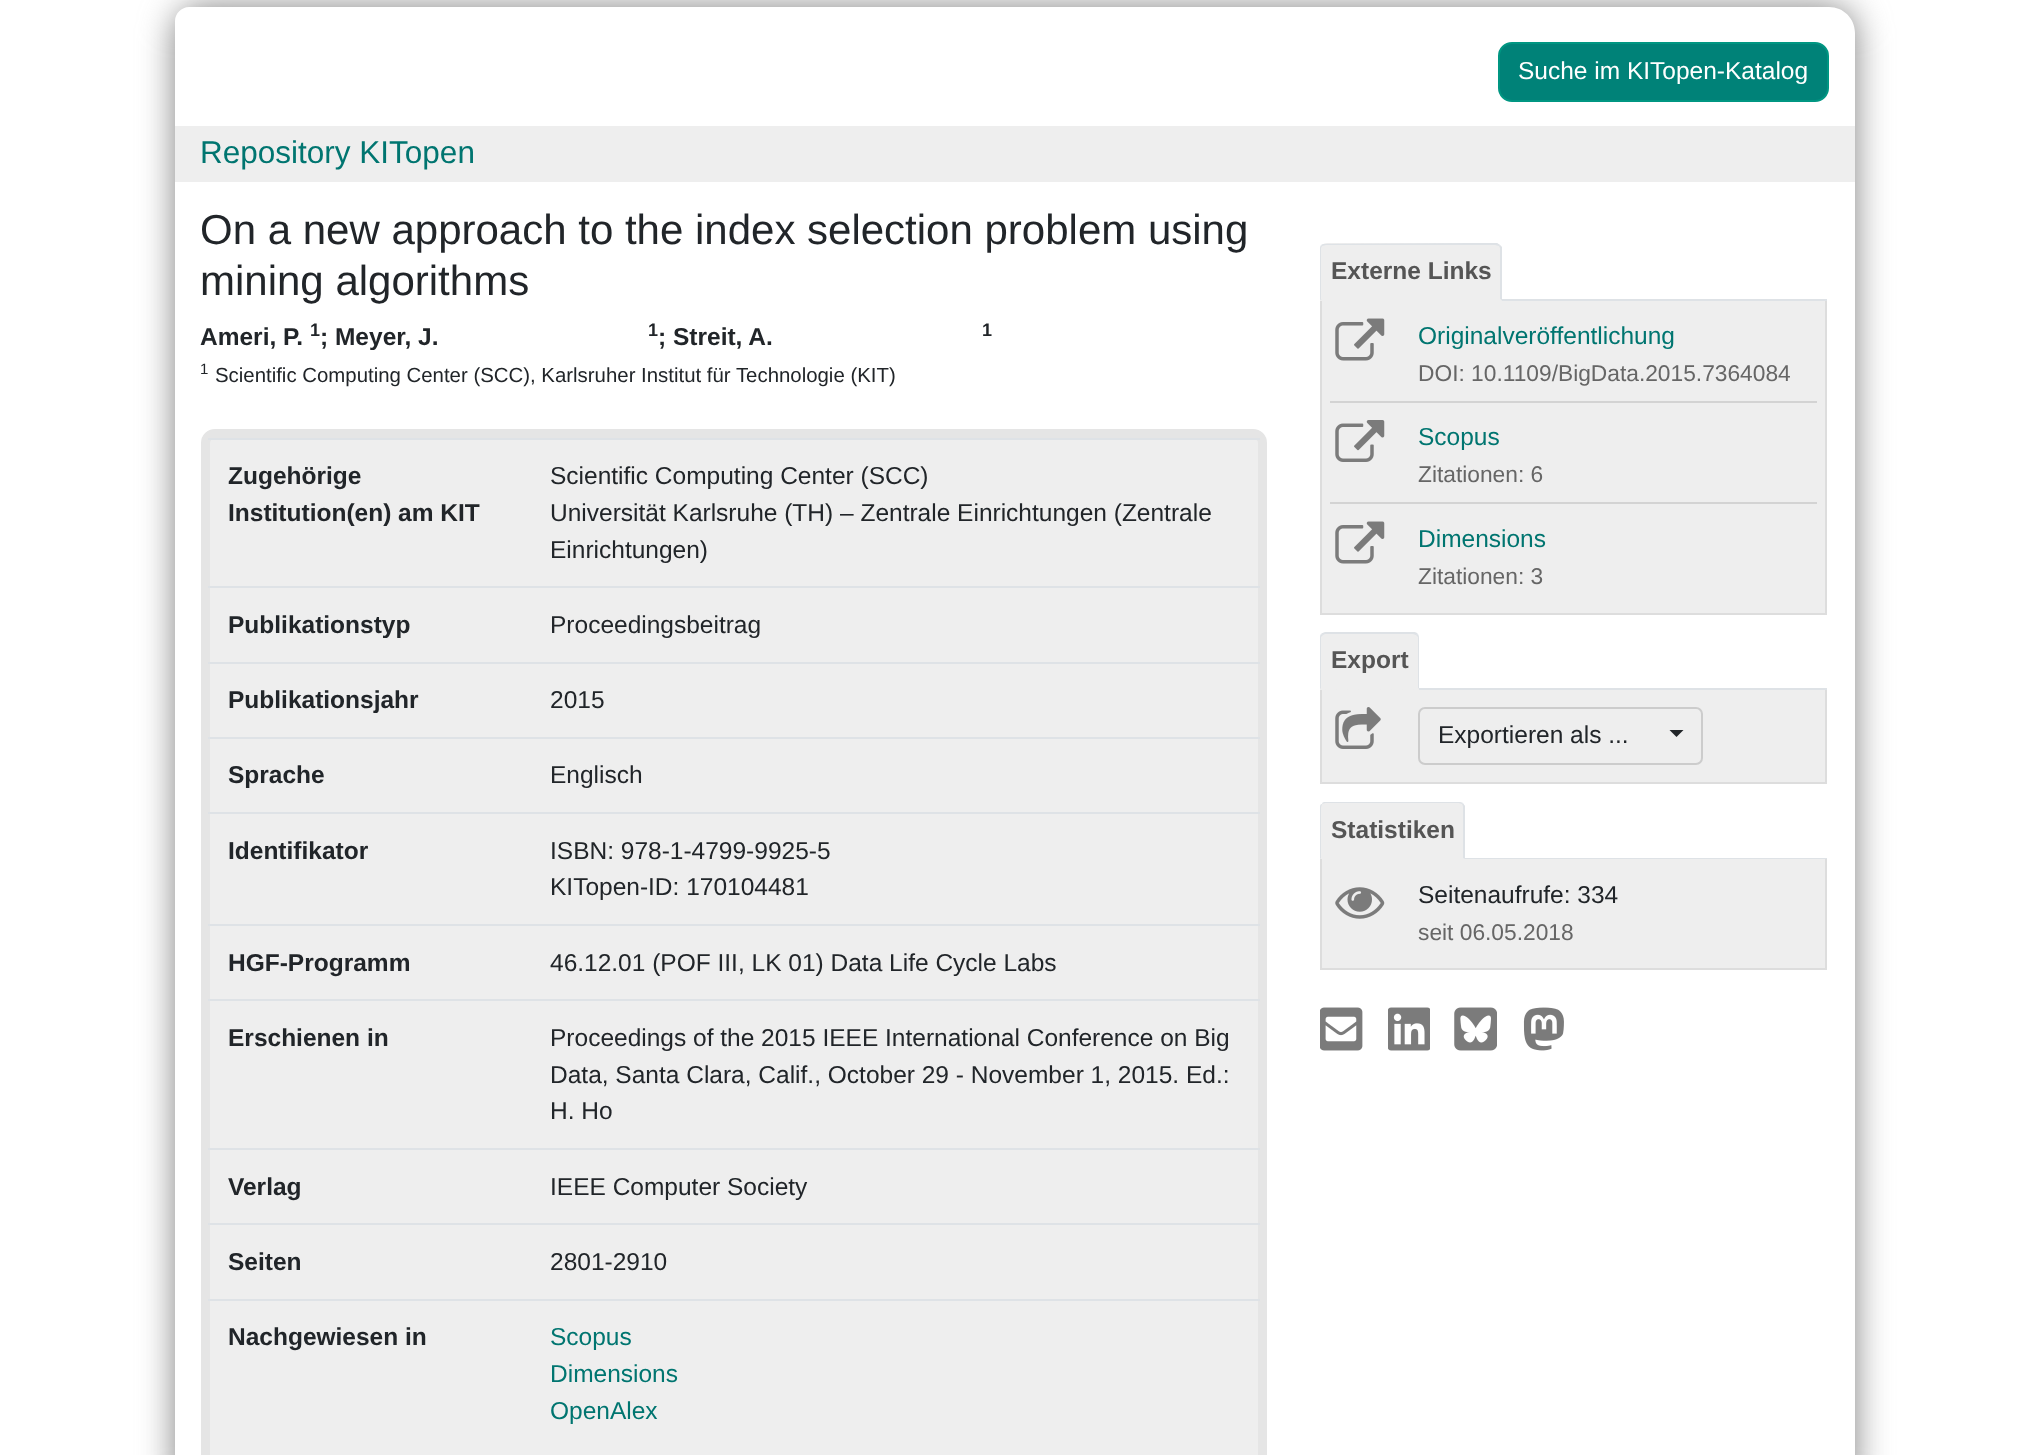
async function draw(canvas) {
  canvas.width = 2027
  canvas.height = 1455
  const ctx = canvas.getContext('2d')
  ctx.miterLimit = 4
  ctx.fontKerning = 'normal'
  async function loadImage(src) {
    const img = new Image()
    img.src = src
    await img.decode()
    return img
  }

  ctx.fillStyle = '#fff'
  ctx.fillRect(0, 0, 2027, 1455)
  ctx.save()
  ctx.beginPath()
  ctx.moveTo(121, 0)
  ctx.lineTo(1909, 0)
  ctx.lineTo(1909, 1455)
  ctx.lineTo(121, 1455)
  ctx.closePath()
  ctx.moveTo(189, 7)
  ctx.lineTo(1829, 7)
  ctx.bezierCurveTo(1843.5, 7, 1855, 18.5, 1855, 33)
  ctx.lineTo(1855, 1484)
  ctx.bezierCurveTo(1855, 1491.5, 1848.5, 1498, 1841, 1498)
  ctx.lineTo(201, 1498)
  ctx.bezierCurveTo(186.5, 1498, 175, 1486.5, 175, 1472)
  ctx.lineTo(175, 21)
  ctx.bezierCurveTo(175, 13.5, 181.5, 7, 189, 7)
  ctx.closePath()
  ctx.clip('evenodd')
  ctx.fillStyle = '#808080'
  ctx.filter = 'blur(17.5px)'
  ctx.beginPath()
  ctx.roundRect(175, 7, 1680, 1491, 26)
  ctx.fill()
  ctx.filter = 'none'
  ctx.restore()
  ctx.fillStyle = '#008278'
  ctx.beginPath()
  ctx.roundRect(1499, 43, 329, 58, 13)
  ctx.fill()
  ctx.strokeStyle = '#009682'
  ctx.lineWidth = 2
  ctx.stroke()
  ctx.font = '24.5px Liberation Sans'
  ctx.fillStyle = '#fff'
  ctx.fillText('Suche im KITopen-Katalog', 1518, 79)
  ctx.fillStyle = '#eee'
  ctx.fillRect(175, 126, 1680, 56)
  ctx.font = '31.5px Liberation Sans'
  ctx.fillStyle = '#007570'
  ctx.fillText('Repository KITopen', 200, 163)
  ctx.font = '42px Liberation Sans'
  ctx.fillStyle = '#212529'
  ctx.fillText('On a new approach to the index selection problem using', 200, 244)
  ctx.fillText('mining algorithms', 200, 295)
  ctx.font = 'bold 24.5px Liberation Sans'
  ctx.fillText('Ameri, P.', 200, 345)
  ctx.font = 'bold 18px Liberation Sans'
  ctx.fillText('1', 310, 336)
  ctx.font = 'bold 24.5px Liberation Sans'
  ctx.fillText('; Meyer, J.', 320, 345)
  ctx.font = 'bold 18px Liberation Sans'
  ctx.fillText('1', 648, 336)
  ctx.font = 'bold 24.5px Liberation Sans'
  ctx.fillText('; Streit, A.', 658, 345)
  ctx.font = 'bold 18px Liberation Sans'
  ctx.fillText('1', 982, 336)
  ctx.font = '15px Liberation Sans'
  ctx.fillText('1', 200, 374)
  ctx.font = '20.4px Liberation Sans'
  ctx.fillText('Scientific Computing Center (SCC), Karlsruher Institut für Technologie (KIT)', 215, 382)
  ctx.fillStyle = '#eee'
  ctx.beginPath()
  ctx.roundRect(205.5, 433.5, 1057, 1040, 9.5)
  ctx.fill()
  ctx.strokeStyle = '#e5e5e5'
  ctx.lineWidth = 9
  ctx.stroke()
  ctx.font = 'bold 24.5px Liberation Sans'
  ctx.fillStyle = '#212529'
  ctx.fillText('Zugehörige', 228, 484)
  ctx.fillText('Institution(en) am KIT', 228, 521)
  ctx.fillStyle = '#dee2e6'
  ctx.fillRect(208, 438, 1052, 2)
  ctx.font = '24.5px Liberation Sans'
  ctx.fillStyle = '#212529'
  ctx.fillText('Scientific Computing Center (SCC)', 550, 484)
  ctx.fillText('Universität Karlsruhe (TH) – Zentrale Einrichtungen (Zentrale', 550, 521)
  ctx.fillText('Einrichtungen)', 550, 558)
  ctx.font = 'bold 24.5px Liberation Sans'
  ctx.fillText('Publikationstyp', 228, 633)
  ctx.fillStyle = '#dee2e6'
  ctx.fillRect(208, 586, 1052, 2)
  ctx.font = '24.5px Liberation Sans'
  ctx.fillStyle = '#212529'
  ctx.fillText('Proceedingsbeitrag', 550, 633)
  ctx.font = 'bold 24.5px Liberation Sans'
  ctx.fillText('Publikationsjahr', 228, 708)
  ctx.fillStyle = '#dee2e6'
  ctx.fillRect(208, 662, 1052, 2)
  ctx.font = '24.5px Liberation Sans'
  ctx.fillStyle = '#212529'
  ctx.fillText('2015', 550, 708)
  ctx.font = 'bold 24.5px Liberation Sans'
  ctx.fillText('Sprache', 228, 783)
  ctx.fillStyle = '#dee2e6'
  ctx.fillRect(208, 737, 1052, 2)
  ctx.font = '24.5px Liberation Sans'
  ctx.fillStyle = '#212529'
  ctx.fillText('Englisch', 550, 783)
  ctx.font = 'bold 24.5px Liberation Sans'
  ctx.fillText('Identifikator', 228, 859)
  ctx.fillStyle = '#dee2e6'
  ctx.fillRect(208, 812, 1052, 2)
  ctx.font = '24.5px Liberation Sans'
  ctx.fillStyle = '#212529'
  ctx.fillText('ISBN: 978-1-4799-9925-5', 550, 859)
  ctx.fillText('KITopen-ID: 170104481', 550, 895)
  ctx.font = 'bold 24.5px Liberation Sans'
  ctx.fillText('HGF-Programm', 228, 971)
  ctx.fillStyle = '#dee2e6'
  ctx.fillRect(208, 924, 1052, 2)
  ctx.font = '24.5px Liberation Sans'
  ctx.fillStyle = '#212529'
  ctx.fillText('46.12.01 (POF III, LK 01) Data Life Cycle Labs', 550, 971)
  ctx.font = 'bold 24.5px Liberation Sans'
  ctx.fillText('Erschienen in', 228, 1046)
  ctx.fillStyle = '#dee2e6'
  ctx.fillRect(208, 999, 1052, 2)
  ctx.font = '24.5px Liberation Sans'
  ctx.fillStyle = '#212529'
  ctx.fillText('Proceedings of the 2015 IEEE International Conference on Big', 550, 1046)
  ctx.fillText('Data, Santa Clara, Calif., October 29 - November 1, 2015. Ed.:', 550, 1083)
  ctx.fillText('H. Ho', 550, 1119)
  ctx.font = 'bold 24.5px Liberation Sans'
  ctx.fillText('Verlag', 228, 1195)
  ctx.fillStyle = '#dee2e6'
  ctx.fillRect(208, 1148, 1052, 2)
  ctx.font = '24.5px Liberation Sans'
  ctx.fillStyle = '#212529'
  ctx.fillText('IEEE Computer Society', 550, 1195)
  ctx.font = 'bold 24.5px Liberation Sans'
  ctx.fillText('Seiten', 228, 1270)
  ctx.fillStyle = '#dee2e6'
  ctx.fillRect(208, 1223, 1052, 2)
  ctx.font = '24.5px Liberation Sans'
  ctx.fillStyle = '#212529'
  ctx.fillText('2801-2910', 550, 1270)
  ctx.font = 'bold 24.5px Liberation Sans'
  ctx.fillText('Nachgewiesen in', 228, 1345)
  ctx.fillStyle = '#dee2e6'
  ctx.fillRect(208, 1299, 1052, 2)
  ctx.font = '24.5px Liberation Sans'
  ctx.fillStyle = '#007570'
  ctx.fillText('Scopus', 550, 1345)
  ctx.fillText('Dimensions', 550, 1382)
  ctx.fillText('OpenAlex', 550, 1419)
  ctx.fillStyle = '#dee2e6'
  ctx.fillRect(1502, 299, 325, 2)
  ctx.fillStyle = '#eee'
  ctx.beginPath()
  ctx.roundRect(1320, 243, 182, 58, [7, 7, 0, 0])
  ctx.fill()
  ctx.fillStyle = '#dee2e6'
  ctx.beginPath()
  ctx.moveTo(1326, 245)
  ctx.lineTo(1322, 246)
  ctx.lineTo(1321, 245)
  ctx.lineTo(1323, 244)
  ctx.lineTo(1468, 243)
  ctx.lineTo(1497, 243)
  ctx.lineTo(1500, 245)
  ctx.lineTo(1499, 246)
  ctx.lineTo(1495, 245)
  ctx.closePath()
  ctx.fill()
  ctx.beginPath()
  ctx.moveTo(1502, 247)
  ctx.lineTo(1502, 301)
  ctx.lineTo(1500, 299)
  ctx.lineTo(1500, 248)
  ctx.lineTo(1499, 246)
  ctx.lineTo(1500, 245)
  ctx.closePath()
  ctx.fill()
  ctx.fillStyle = '#eee'
  ctx.beginPath()
  ctx.moveTo(1502, 301)
  ctx.lineTo(1500, 299)
  ctx.lineTo(1322, 299)
  ctx.lineTo(1320, 301)
  ctx.closePath()
  ctx.fill()
  ctx.fillStyle = '#dee2e6'
  ctx.beginPath()
  ctx.moveTo(1320, 300)
  ctx.lineTo(1320, 249)
  ctx.bezierCurveTo(1320, 248, 1320, 246, 1321, 245)
  ctx.lineTo(1322, 246)
  ctx.lineTo(1321, 248)
  ctx.lineTo(1321, 299)
  ctx.lineTo(1322, 299)
  ctx.closePath()
  ctx.fill()
  ctx.font = 'bold 24.5px Liberation Sans'
  ctx.fillStyle = '#555'
  ctx.fillText('Externe Links', 1331, 279)
  ctx.fillStyle = '#eee'
  ctx.fillRect(1322, 301, 503, 312)
  ctx.fillStyle = '#ddd'
  ctx.fillRect(1825, 301, 2, 313)
  ctx.fillRect(1320, 613, 507, 2)
  ctx.fillRect(1320, 301, 2, 313)
  ctx.fillStyle = '#d3d3d3'
  ctx.fillRect(1330, 401, 487, 2)
  ctx.drawImage(await loadImage('image0.png'), 1335, 318, 50, 43)
  ctx.font = '24.5px Liberation Sans'
  ctx.fillStyle = '#007570'
  ctx.fillText('Originalveröffentlichung', 1418, 344)
  ctx.font = '22.75px Liberation Sans'
  ctx.fillStyle = '#666'
  ctx.fillText('DOI: 10.1109/BigData.2015.7364084', 1418, 381)
  ctx.fillStyle = '#d3d3d3'
  ctx.fillRect(1330, 502, 487, 2)
  ctx.drawImage(await loadImage('image1.png'), 1335, 420, 50, 42)
  ctx.font = '24.5px Liberation Sans'
  ctx.fillStyle = '#007570'
  ctx.fillText('Scopus', 1418, 445)
  ctx.font = '22.75px Liberation Sans'
  ctx.fillStyle = '#666'
  ctx.fillText('Zitationen: 6', 1418, 482)
  ctx.drawImage(await loadImage('image0.png'), 1335, 521, 50, 43)
  ctx.font = '24.5px Liberation Sans'
  ctx.fillStyle = '#007570'
  ctx.fillText('Dimensions', 1418, 547)
  ctx.font = '22.75px Liberation Sans'
  ctx.fillStyle = '#666'
  ctx.fillText('Zitationen: 3', 1418, 584)
  ctx.fillStyle = '#dee2e6'
  ctx.fillRect(1419, 688, 408, 2)
  ctx.fillStyle = '#eee'
  ctx.beginPath()
  ctx.roundRect(1320, 632, 99, 58, [7, 7, 0, 0])
  ctx.fill()
  ctx.fillStyle = '#dee2e6'
  ctx.beginPath()
  ctx.moveTo(1326, 632)
  ctx.bezierCurveTo(1324, 632, 1322, 633, 1321, 634)
  ctx.lineTo(1323, 635)
  ctx.lineTo(1325, 634)
  ctx.lineTo(1413, 634)
  ctx.lineTo(1416, 635)
  ctx.lineTo(1418, 634)
  ctx.bezierCurveTo(1416, 632, 1415, 632, 1413, 632)
  ctx.closePath()
  ctx.fill()
  ctx.beginPath()
  ctx.moveTo(1419, 689)
  ctx.lineTo(1419, 638)
  ctx.bezierCurveTo(1419, 636, 1418, 634, 1418, 634)
  ctx.lineTo(1416, 635)
  ctx.lineTo(1418, 637)
  ctx.lineTo(1418, 688)
  ctx.closePath()
  ctx.fill()
  ctx.fillStyle = '#eee'
  ctx.beginPath()
  ctx.moveTo(1320, 690)
  ctx.lineTo(1321, 688)
  ctx.lineTo(1418, 688)
  ctx.lineTo(1419, 689)
  ctx.closePath()
  ctx.fill()
  ctx.fillStyle = '#dee2e6'
  ctx.beginPath()
  ctx.moveTo(1321, 634)
  ctx.bezierCurveTo(1320, 635, 1320, 636, 1320, 638)
  ctx.lineTo(1320, 689)
  ctx.lineTo(1321, 688)
  ctx.lineTo(1321, 637)
  ctx.lineTo(1323, 635)
  ctx.closePath()
  ctx.fill()
  ctx.font = 'bold 24.5px Liberation Sans'
  ctx.fillStyle = '#555'
  ctx.fillText('Export', 1331, 668)
  ctx.fillStyle = '#eee'
  ctx.fillRect(1322, 690, 503, 92)
  ctx.fillStyle = '#ddd'
  ctx.fillRect(1825, 690, 2, 94)
  ctx.fillRect(1320, 782, 507, 2)
  ctx.fillRect(1320, 690, 2, 94)
  ctx.drawImage(await loadImage('image2.png'), 1335, 707, 46, 42)
  ctx.beginPath()
  ctx.roundRect(1419, 708, 283, 56, 6)
  ctx.strokeStyle = '#ccc'
  ctx.lineWidth = 2
  ctx.stroke()
  ctx.font = '24.5px Liberation Sans'
  ctx.fillStyle = '#212529'
  ctx.fillText('Exportieren als ...', 1438, 743)
  ctx.beginPath()
  ctx.moveTo(1669.5, 730)
  ctx.lineTo(1683.5, 730)
  ctx.lineTo(1676.5, 737)
  ctx.closePath()
  ctx.fill()
  ctx.fillStyle = '#dee2e6'
  ctx.fillRect(1465, 858, 362, 1)
  ctx.fillStyle = '#eee'
  ctx.beginPath()
  ctx.roundRect(1320, 802, 145, 57, [7, 7, 0, 0])
  ctx.fill()
  ctx.fillStyle = '#dee2e6'
  ctx.beginPath()
  ctx.moveTo(1326, 802)
  ctx.bezierCurveTo(1324, 802, 1322, 802, 1322, 804)
  ctx.lineTo(1325, 803)
  ctx.lineTo(1459, 803)
  ctx.bezierCurveTo(1460, 803, 1461, 804, 1462, 804)
  ctx.lineTo(1463, 803)
  ctx.bezierCurveTo(1462, 802, 1460, 802, 1459, 802)
  ctx.closePath()
  ctx.fill()
  ctx.beginPath()
  ctx.moveTo(1463, 803)
  ctx.lineTo(1465, 806)
  ctx.lineTo(1465, 859)
  ctx.lineTo(1463, 858)
  ctx.lineTo(1463, 808)
  ctx.bezierCurveTo(1463, 807, 1463, 805, 1462, 804)
  ctx.closePath()
  ctx.fill()
  ctx.beginPath()
  ctx.moveTo(1322, 804)
  ctx.bezierCurveTo(1320, 804, 1320, 806, 1320, 808)
  ctx.lineTo(1320, 859)
  ctx.lineTo(1321, 858)
  ctx.lineTo(1321, 808)
  ctx.bezierCurveTo(1321, 806, 1322, 805, 1322, 804)
  ctx.closePath()
  ctx.fill()
  ctx.font = 'bold 24.5px Liberation Sans'
  ctx.fillStyle = '#555'
  ctx.fillText('Statistiken', 1331, 838)
  ctx.fillStyle = '#eee'
  ctx.fillRect(1322, 859, 503, 109)
  ctx.fillStyle = '#ddd'
  ctx.fillRect(1825, 859, 2, 111)
  ctx.fillRect(1320, 968, 507, 2)
  ctx.fillRect(1320, 859, 2, 111)
  ctx.drawImage(await loadImage('image3.png'), 1335, 887, 50, 32)
  ctx.font = '24.5px Liberation Sans'
  ctx.fillStyle = '#212529'
  ctx.fillText('Seitenaufrufe: 334', 1418, 903)
  ctx.font = '22.75px Liberation Sans'
  ctx.fillStyle = '#666'
  ctx.fillText('seit 06.05.2018', 1418, 940)
  ctx.drawImage(await loadImage('image4.png'), 1320, 1007, 43, 44)
  ctx.drawImage(await loadImage('image5.png'), 1388, 1007, 42, 44)
  ctx.drawImage(await loadImage('image6.png'), 1454, 1007, 43, 44)
  ctx.drawImage(await loadImage('image7.png'), 1523, 1007, 41, 44)
}

draw(document.querySelector('canvas'))
